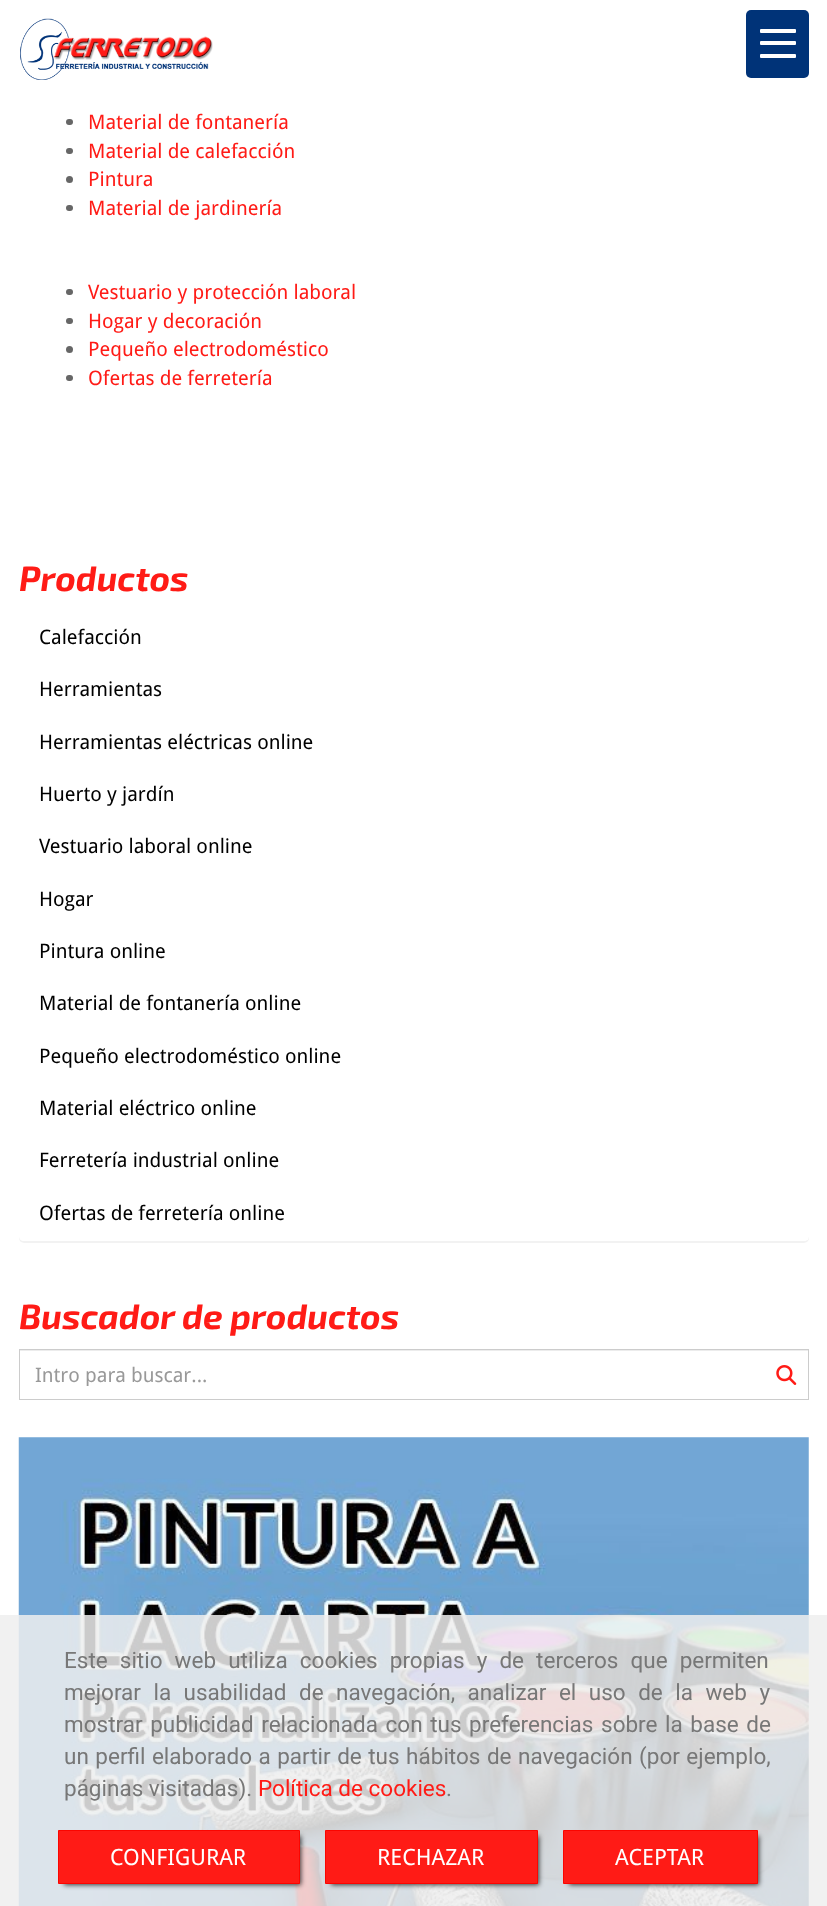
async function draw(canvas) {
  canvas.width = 827
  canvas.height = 1906
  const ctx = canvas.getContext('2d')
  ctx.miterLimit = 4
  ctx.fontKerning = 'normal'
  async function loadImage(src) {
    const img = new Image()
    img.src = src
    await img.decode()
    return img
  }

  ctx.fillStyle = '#fff'
  ctx.fillRect(0, 0, 827, 1906)
  ctx.drawImage(await loadImage('image0.png'), 20, 18, 193, 62)
  ctx.fillStyle = '#003378'
  ctx.beginPath()
  ctx.roundRect(746, 10, 63, 68, 5)
  ctx.fill()
  ctx.fillStyle = '#fff'
  ctx.beginPath()
  ctx.roundRect(760, 41, 36, 4, 1)
  ctx.fill()
  ctx.beginPath()
  ctx.roundRect(760, 29, 36, 4, 1)
  ctx.fill()
  ctx.beginPath()
  ctx.roundRect(760, 54, 36, 4, 1)
  ctx.fill()
  ctx.fillStyle = '#666'
  ctx.beginPath()
  ctx.roundRect(66, 119, 7, 6, 3)
  ctx.fill()
  ctx.font = '20px Droid Sans'
  ctx.fillStyle = '#ff1b16'
  ctx.fillText('Material de fontanería', 88, 129)
  ctx.fillStyle = '#666'
  ctx.beginPath()
  ctx.roundRect(66, 148, 7, 6, 3)
  ctx.fill()
  ctx.fillStyle = '#ff1b16'
  ctx.fillText('Material de calefacción', 88, 158)
  ctx.fillStyle = '#666'
  ctx.beginPath()
  ctx.arc(69.5, 179.5, 3.5, 0, 2 * Math.PI)
  ctx.fill()
  ctx.fillStyle = '#ff1b16'
  ctx.fillText('Pintura', 88, 186)
  ctx.fillStyle = '#666'
  ctx.beginPath()
  ctx.roundRect(66, 205, 7, 6, 3)
  ctx.fill()
  ctx.fillStyle = '#ff1b16'
  ctx.fillText('Material de jardinería', 88, 215)
  ctx.fillStyle = '#666'
  ctx.beginPath()
  ctx.roundRect(66, 289, 7, 6, 3)
  ctx.fill()
  ctx.fillStyle = '#ff1b16'
  ctx.fillText('Vestuario y protección laboral', 88, 299)
  ctx.fillStyle = '#666'
  ctx.beginPath()
  ctx.roundRect(66, 318, 7, 6, 3)
  ctx.fill()
  ctx.fillStyle = '#ff1b16'
  ctx.fillText('Hogar y decoración', 88, 328)
  ctx.fillStyle = '#666'
  ctx.beginPath()
  ctx.arc(69.5, 349.5, 3.5, 0, 2 * Math.PI)
  ctx.fill()
  ctx.fillStyle = '#ff1b16'
  ctx.fillText('Pequeño electrodoméstico', 88, 356)
  ctx.fillStyle = '#666'
  ctx.beginPath()
  ctx.roundRect(66, 375, 7, 6, 3)
  ctx.fill()
  ctx.fillStyle = '#ff1b16'
  ctx.fillText('Ofertas de ferretería', 88, 385)
  ctx.font = 'italic bold 35px "Exo 2"'
  ctx.fillText('Productos', 19, 591)
  ctx.save()
  ctx.beginPath()
  ctx.moveTo(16, 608)
  ctx.lineTo(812, 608)
  ctx.lineTo(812, 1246)
  ctx.lineTo(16, 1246)
  ctx.closePath()
  ctx.moveTo(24, 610)
  ctx.lineTo(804, 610)
  ctx.bezierCurveTo(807, 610, 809, 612, 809, 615)
  ctx.lineTo(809, 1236)
  ctx.bezierCurveTo(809, 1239, 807, 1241, 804, 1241)
  ctx.lineTo(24, 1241)
  ctx.bezierCurveTo(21, 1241, 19, 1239, 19, 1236)
  ctx.lineTo(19, 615)
  ctx.bezierCurveTo(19, 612, 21, 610, 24, 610)
  ctx.closePath()
  ctx.clip('evenodd')
  ctx.fillStyle = '#0000000d'
  ctx.filter = 'blur(0.5px)'
  ctx.beginPath()
  ctx.roundRect(19, 611, 790, 632, 5)
  ctx.fill()
  ctx.filter = 'none'
  ctx.restore()
  ctx.font = '20px Droid Sans'
  ctx.fillStyle = '#000'
  ctx.fillText('Calefacción', 39, 644)
  ctx.fillText('Herramientas', 39, 696)
  ctx.fillText('Herramientas eléctricas online', 39, 749)
  ctx.fillText('Huerto y jardín', 39, 801)
  ctx.fillText('Vestuario laboral online', 39, 853)
  ctx.fillText('Hogar', 39, 906)
  ctx.fillText('Pintura online', 39, 958)
  ctx.fillText('Material de fontanería online', 39, 1010)
  ctx.fillText('Pequeño electrodoméstico online', 39, 1063)
  ctx.fillText('Material eléctrico online', 39, 1115)
  ctx.fillText('Ferretería industrial online', 39, 1167)
  ctx.fillStyle = '#fff'
  ctx.fillRect(807, 1239, 1, 1)
  ctx.fillStyle = '#000'
  ctx.fillText('Ofertas de ferretería online', 39, 1220)
  ctx.font = 'italic bold 35px "Exo 2"'
  ctx.fillStyle = '#ff1b16'
  ctx.fillText('Buscador de productos', 19, 1329)
  ctx.fillStyle = '#ececec'
  ctx.fillRect(20, 1350, 788, 1)
  ctx.strokeStyle = '#ccc'
  ctx.strokeRect(19.5, 1349.5, 789, 50)
  ctx.save()
  ctx.beginPath()
  ctx.rect(35, 1363, 730, 23)
  ctx.clip()
  ctx.font = '20px Droid Sans'
  ctx.fillStyle = '#999'
  ctx.fillText('Intro para buscar...', 35, 1382)
  ctx.restore()
  ctx.drawImage(await loadImage('image1.png'), 776, 1365, 21, 20)
  ctx.drawImage(await loadImage('image2.png'), 18, 1437, 791, 469)
  ctx.fillStyle = '#eeeeeed9'
  ctx.fillRect(0, 1615, 827, 291)
  ctx.wordSpacing = '6.5px'
  ctx.font = '22.5px Roboto'
  ctx.fillStyle = '#777'
  ctx.fillText('Este sitio web utiliza cookies propias y de terceros que permiten', 64, 1668)
  ctx.wordSpacing = '6.9px'
  ctx.fillText('mejorar la usabilidad de navegación, analizar el uso de la web y', 64, 1700)
  ctx.wordSpacing = '2px'
  ctx.fillText('mostrar publicidad relacionada con tus preferencias sobre la base de', 64, 1732)
  ctx.wordSpacing = '0.9px'
  ctx.fillText('un perfil elaborado a partir de tus hábitos de navegación (por ejemplo,', 64, 1764)
  ctx.wordSpacing = '0px'
  ctx.fillText('páginas visitadas).', 64, 1796)
  ctx.fillStyle = '#ff1b16'
  ctx.fillText('Política de cookies', 258, 1796)
  ctx.fillStyle = '#777'
  ctx.fillText('.', 446, 1796)
  ctx.fillStyle = '#000000bf'
  ctx.filter = 'blur(2.5px)'
  ctx.beginPath()
  ctx.rect(64, 1836, 237, 49)
  ctx.fill()
  ctx.filter = 'none'
  ctx.fillStyle = '#ff1b16'
  ctx.beginPath()
  ctx.rect(58.5, 1830.5, 241, 53)
  ctx.fill()
  ctx.strokeStyle = '#fb0500'
  ctx.stroke()
  ctx.font = '22.5px Droid Sans'
  ctx.fillStyle = '#fff'
  ctx.fillText('CONFIGURAR', 110, 1865)
  ctx.fillStyle = '#000000bf'
  ctx.filter = 'blur(2.5px)'
  ctx.beginPath()
  ctx.rect(331, 1836, 208, 49)
  ctx.fill()
  ctx.filter = 'none'
  ctx.fillStyle = '#ff1b16'
  ctx.beginPath()
  ctx.rect(325.5, 1830.5, 212, 53)
  ctx.fill()
  ctx.stroke()
  ctx.fillStyle = '#fff'
  ctx.fillText('RECHAZAR', 377, 1865)
  ctx.fillStyle = '#000000bf'
  ctx.filter = 'blur(2.5px)'
  ctx.beginPath()
  ctx.rect(569, 1836, 190, 49)
  ctx.fill()
  ctx.filter = 'none'
  ctx.fillStyle = '#ff1b16'
  ctx.beginPath()
  ctx.rect(563.5, 1830.5, 194, 53)
  ctx.fill()
  ctx.stroke()
  ctx.fillStyle = '#fff'
  ctx.fillText('ACEPTAR', 615, 1865)
}

draw(document.querySelector('canvas'))
